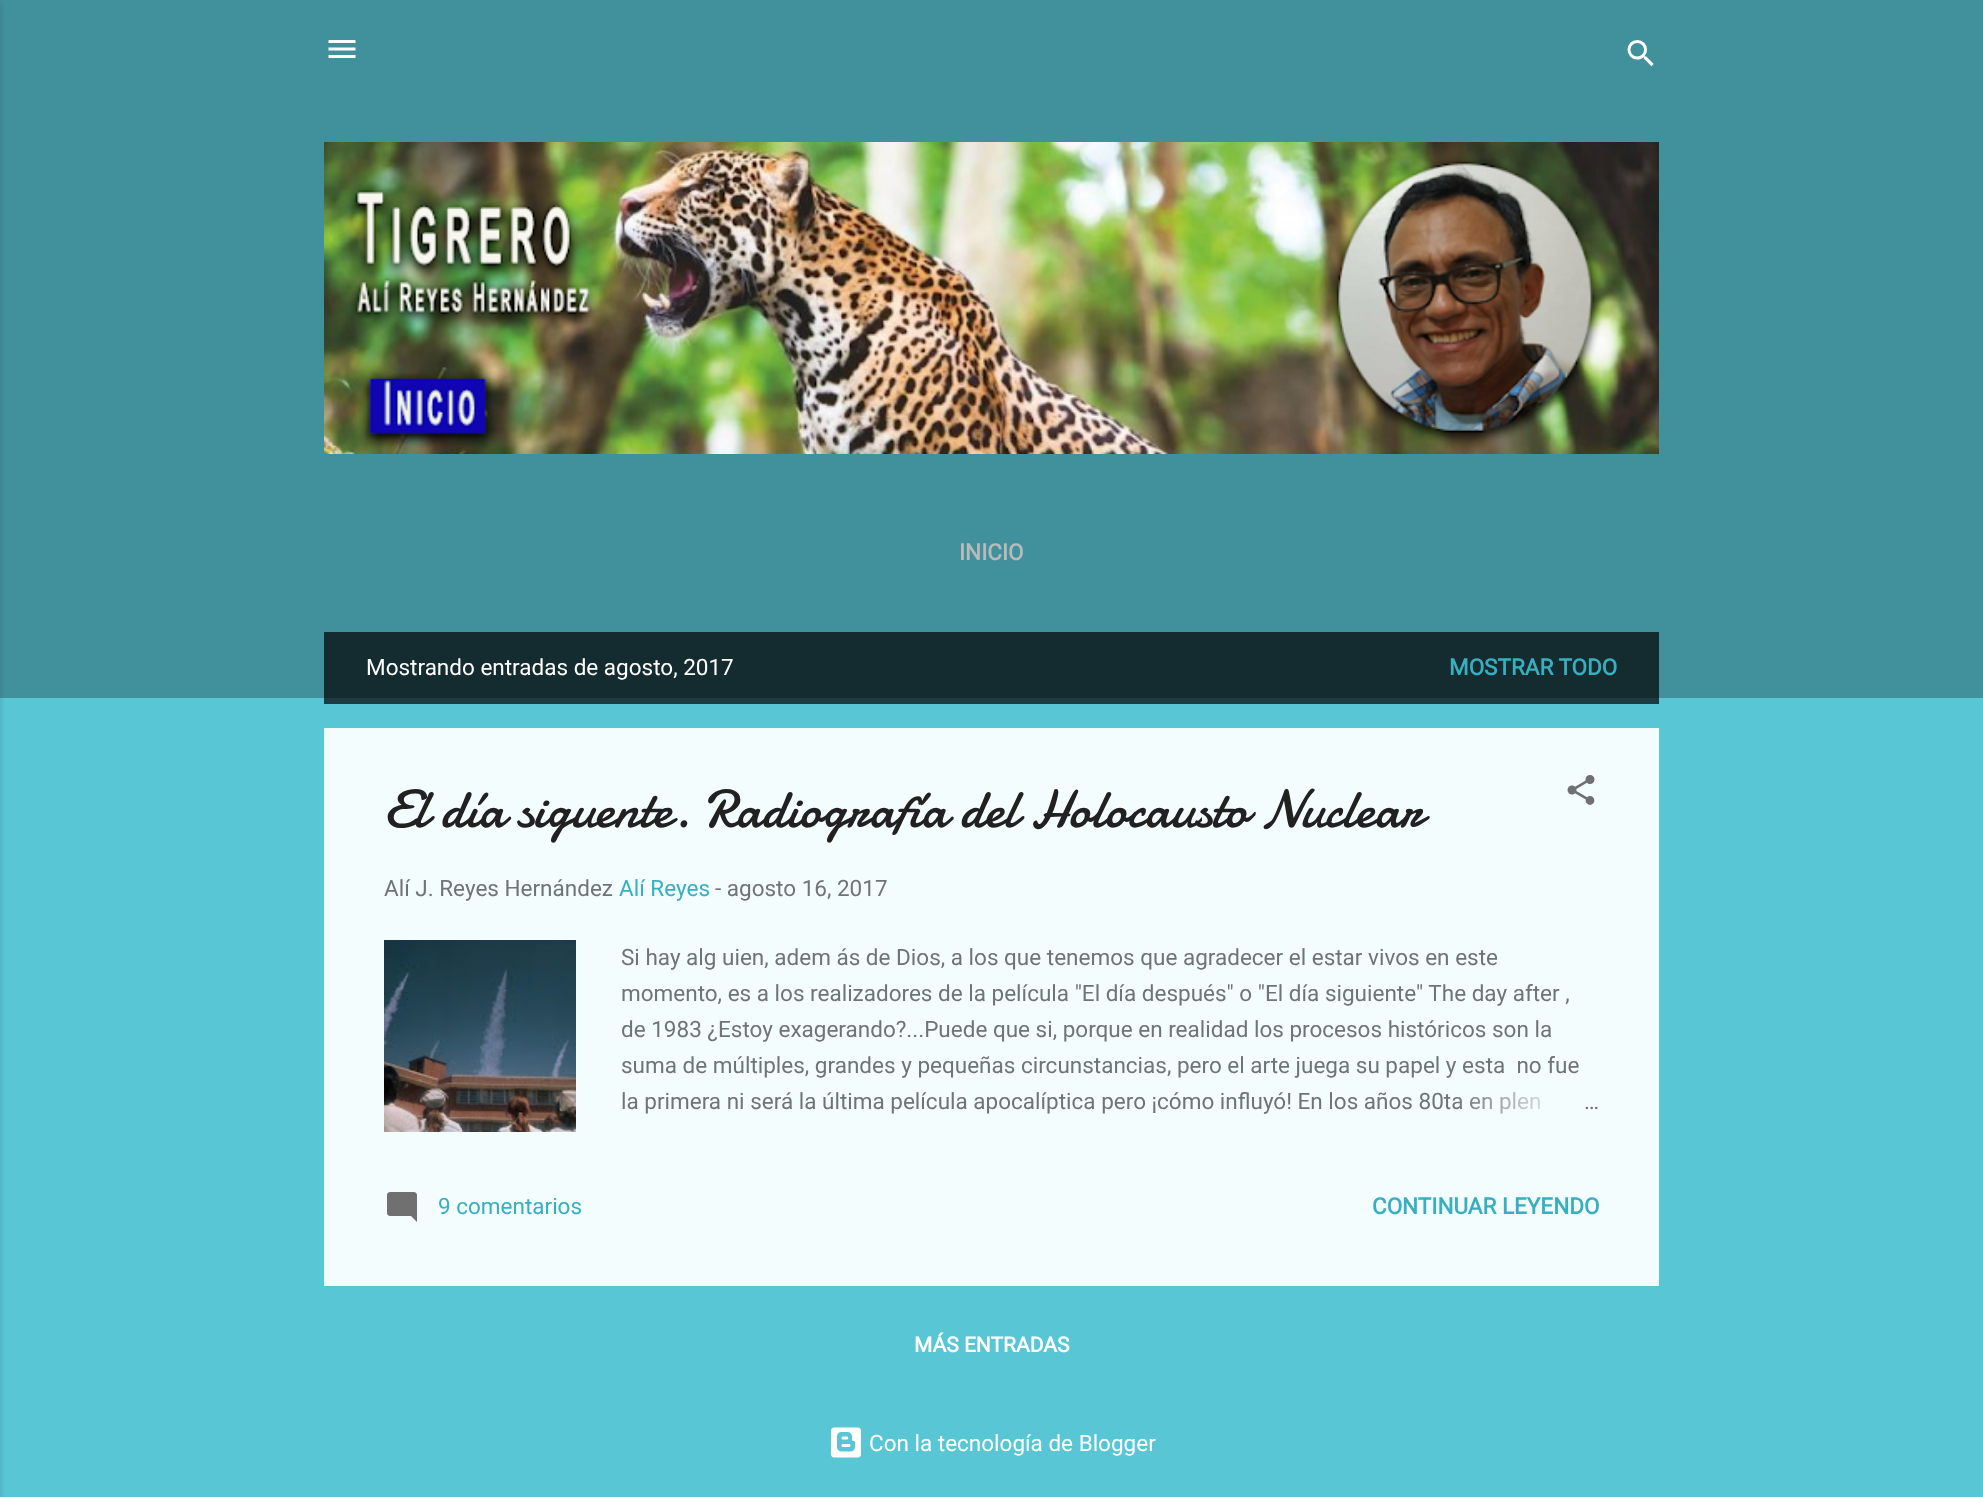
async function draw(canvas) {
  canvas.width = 1983
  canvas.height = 1497
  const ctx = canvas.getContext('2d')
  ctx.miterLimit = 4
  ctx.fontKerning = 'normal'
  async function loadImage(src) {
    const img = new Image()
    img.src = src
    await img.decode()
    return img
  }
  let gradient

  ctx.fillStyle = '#58c6d5'
  ctx.fillRect(0, 0, 1983, 1497)
  ctx.fillStyle = '#1a3b40'
  ctx.fillRect(324, 698, 1335, 6)
  ctx.fillStyle = '#41919d'
  ctx.fillRect(0, 0, 1983, 698)
  ctx.fillStyle = '#0000001a'
  ctx.filter = 'blur(2px)'
  ctx.beginPath()
  ctx.rect(-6, 2, 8, 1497)
  ctx.fill()
  ctx.filter = 'none'
  ctx.fillStyle = '#142c2f'
  ctx.fillRect(324, 632, 1335, 66)
  ctx.drawImage(await loadImage('image0.png'), 328, 40, 28, 18)
  ctx.drawImage(await loadImage('image1.png'), 1627, 40, 27, 27)
  ctx.drawImage(await loadImage('image2.png'), 324, 142, 1335, 312)
  ctx.font = 'bold 22.5px Roboto'
  ctx.fillStyle = '#b8babb'
  ctx.fillText('INICIO', 959, 560)
  ctx.font = '22.5px Roboto'
  ctx.fillStyle = '#fff'
  ctx.fillText('Mostrando entradas de agosto, 2017', 366, 675)
  ctx.font = 'bold 22.5px Roboto'
  ctx.fillStyle = '#37afc0'
  ctx.fillText('MOSTRAR TODO', 1449, 675)
  ctx.fillStyle = '#f3fdfe'
  ctx.fillRect(324, 728, 1335, 558)
  ctx.font = '54px Damion'
  ctx.fillStyle = '#212121'
  ctx.fillText('El día siguente. Radiografía del Holocausto Nuclear', 384, 827)
  ctx.drawImage(await loadImage('image3.png'), 1567, 775, 28, 30)
  ctx.font = '22.5px Roboto'
  ctx.fillStyle = '#707475'
  ctx.fillText('Alí J. Reyes Hernández', 384, 896)
  ctx.fillStyle = '#37afc0'
  ctx.fillText('Alí Reyes', 619, 896)
  ctx.fillStyle = '#707475'
  ctx.fillText('- agosto 16, 2017', 715, 896)
  ctx.drawImage(await loadImage('image4.png'), 384, 940, 192, 192)
  ctx.fillText('Si hay alg uien, adem ás de Dios, a los que tenemos que agradecer el estar vivos en este', 621, 965)
  ctx.fillText('momento, es a los realizadores de la película "El día después" o "El día siguiente" The day after ,', 621, 1001)
  ctx.fillText('de 1983 ¿Estoy exagerando?...Puede que si, porque en realidad los procesos históricos son la', 621, 1037)
  ctx.fillText('suma de múltiples, grandes y pequeñas circunstancias, pero el arte juega su papel y esta  no fue', 621, 1073)
  ctx.fillText('la primera ni será la última película apocalíptica pero ¡cómo influyó! En los años 80ta en plen', 621, 1109)
  gradient = ctx.createLinearGradient(1599, 1103, 1455, 1103)
  gradient.addColorStop(0, '#f3fdfe')
  gradient.addColorStop(0.2, '#f3fdfe')
  gradient.addColorStop(1, '#f3fdfe00')
  ctx.fillStyle = gradient
  ctx.fillRect(1457, 1092, 83, 22)
  ctx.fillStyle = '#707475'
  ctx.fillText('…', 1584, 1109)
  ctx.drawImage(await loadImage('image5.png'), 387, 1192, 30, 30)
  ctx.fillStyle = '#37afc0'
  ctx.fillText('9 comentarios', 438, 1214)
  ctx.font = 'bold 22.5px Roboto'
  ctx.fillText('CONTINUAR LEYENDO', 1372, 1214)
  ctx.font = 'bold 21px Roboto'
  ctx.fillStyle = '#fff'
  ctx.fillText('MÁS ENTRADAS', 914, 1352)
  ctx.drawImage(await loadImage('image6.png'), 831, 1427, 30, 31)
  ctx.font = '22.5px Roboto'
  ctx.fillText('Con la tecnología de Blogger', 869, 1451)
}

draw(document.querySelector('canvas'))
